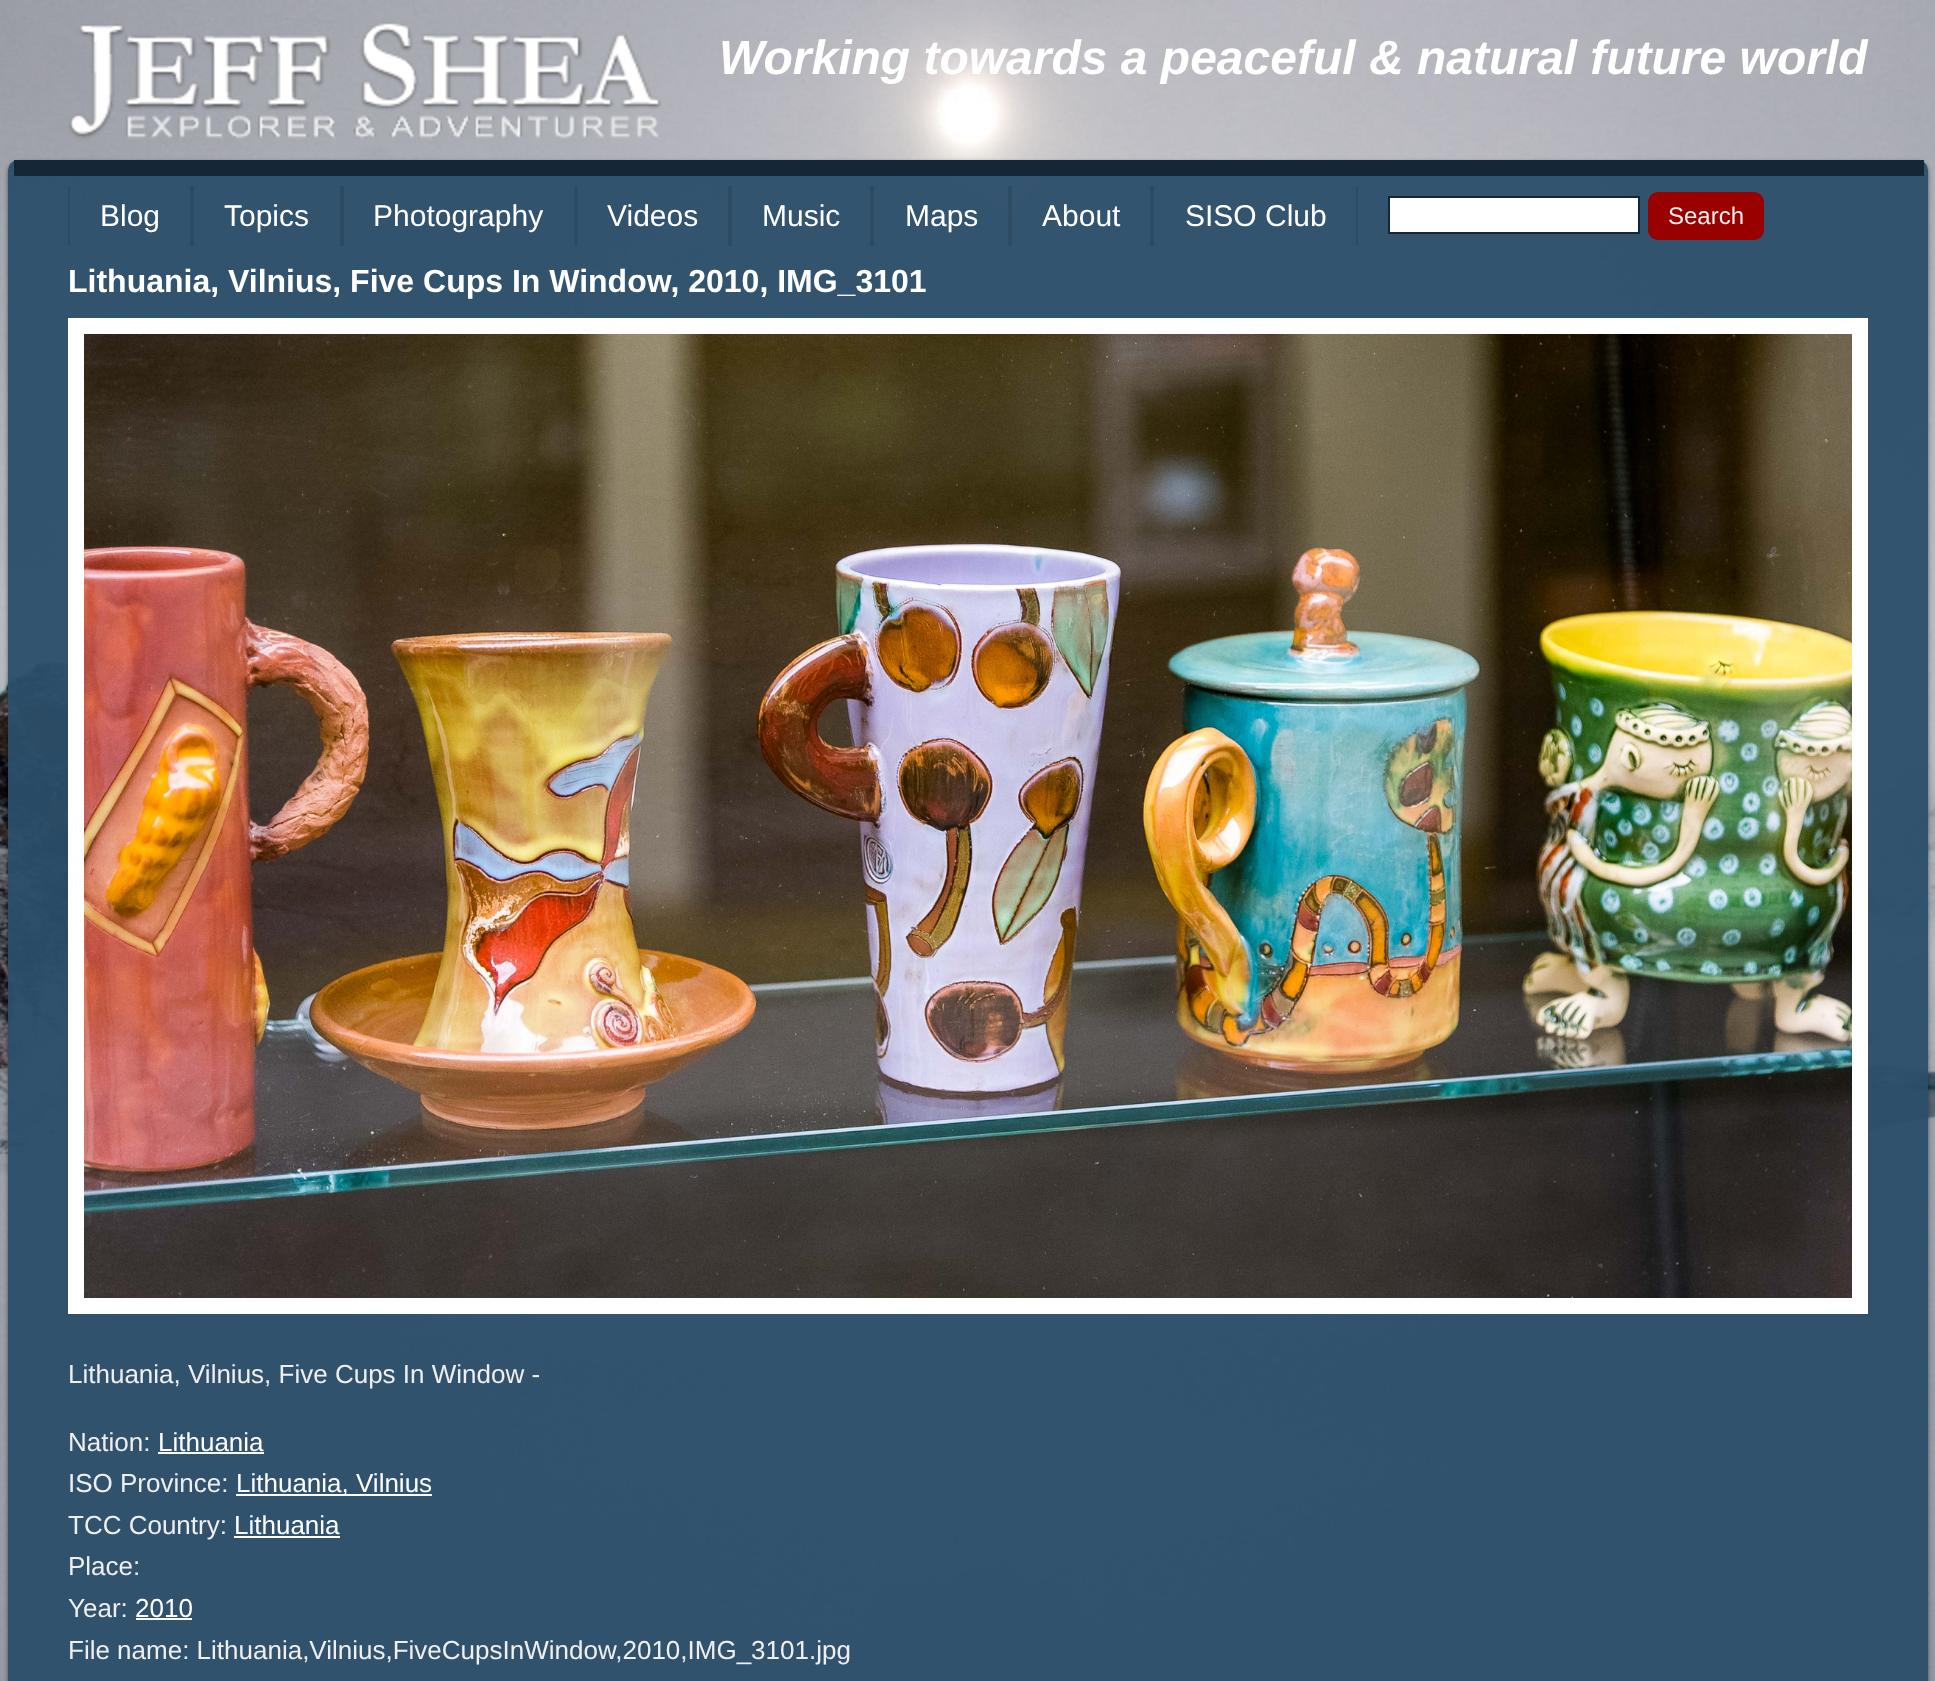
async function draw(canvas) {
  canvas.width = 1935
  canvas.height = 1681
  const ctx = canvas.getContext('2d')
  ctx.miterLimit = 4
  ctx.fontKerning = 'normal'
  async function loadImage(src) {
    const img = new Image()
    img.src = src
    await img.decode()
    return img
  }

  ctx.fillStyle = '#fff'
  ctx.fillRect(0, 0, 1935, 1681)
  ctx.drawImage(await loadImage('image0.png'), 0, 0, 1935, 1681)
  ctx.drawImage(await loadImage('image1.png'), 68, 22, 594, 117)
  ctx.font = 'italic bold 48px Liberation Sans'
  ctx.fillText('Working towards a peaceful & natural future world', 719, 74)
  ctx.save()
  ctx.beginPath()
  ctx.moveTo(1, 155)
  ctx.lineTo(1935, 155)
  ctx.lineTo(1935, 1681)
  ctx.lineTo(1, 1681)
  ctx.closePath()
  ctx.moveTo(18, 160)
  ctx.lineTo(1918, 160)
  ctx.bezierCurveTo(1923.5, 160, 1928, 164.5, 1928, 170)
  ctx.lineTo(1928, 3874)
  ctx.bezierCurveTo(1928, 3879.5, 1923.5, 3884, 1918, 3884)
  ctx.lineTo(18, 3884)
  ctx.bezierCurveTo(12.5, 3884, 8, 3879.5, 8, 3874)
  ctx.lineTo(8, 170)
  ctx.bezierCurveTo(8, 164.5, 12.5, 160, 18, 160)
  ctx.closePath()
  ctx.clip('evenodd')
  ctx.fillStyle = '#00000080'
  ctx.filter = 'blur(2px)'
  ctx.beginPath()
  ctx.roundRect(8, 162, 1920, 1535, 10)
  ctx.fill()
  ctx.filter = 'none'
  ctx.restore()
  ctx.fillStyle = '#2b4e69f2'
  ctx.beginPath()
  ctx.roundRect(8, 160, 1920, 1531, 10)
  ctx.fill()
  ctx.fillStyle = '#152737'
  ctx.fillRect(14, 160, 1910, 16)
  ctx.fillStyle = '#2c4a62'
  ctx.fillRect(190, 186, 4, 60)
  ctx.fillRect(68, 186, 2, 60)
  ctx.font = '30px Liberation Sans'
  ctx.fillStyle = '#fff'
  ctx.fillText('Blog', 100, 226)
  ctx.fillStyle = '#2c4b62'
  ctx.fillRect(340, 186, 4, 60)
  ctx.fillStyle = '#fff'
  ctx.fillText('Topics', 224, 226)
  ctx.fillStyle = '#2d4b62'
  ctx.fillRect(574, 186, 4, 60)
  ctx.fillStyle = '#fff'
  ctx.fillText('Photography', 373, 226)
  ctx.fillStyle = '#2d4b62'
  ctx.fillRect(728, 186, 4, 60)
  ctx.fillStyle = '#fff'
  ctx.fillText('Videos', 607, 226)
  ctx.fillStyle = '#2d4b63'
  ctx.fillRect(870, 186, 4, 60)
  ctx.fillStyle = '#fff'
  ctx.fillText('Music', 762, 226)
  ctx.fillStyle = '#2e4c63'
  ctx.fillRect(1008, 186, 4, 60)
  ctx.fillStyle = '#fff'
  ctx.fillText('Maps', 905, 226)
  ctx.fillStyle = '#2d4b63'
  ctx.fillRect(1150, 186, 4, 60)
  ctx.fillStyle = '#fff'
  ctx.fillText('About', 1042, 226)
  ctx.fillStyle = '#2d4b63'
  ctx.fillRect(1356, 186, 2, 60)
  ctx.fillStyle = '#fff'
  ctx.fillText('SISO Club', 1185, 226)
  ctx.beginPath()
  ctx.rect(1389, 197, 250, 36)
  ctx.fill()
  ctx.strokeStyle = '#152737'
  ctx.lineWidth = 2
  ctx.stroke()
  ctx.fillStyle = '#900'
  ctx.beginPath()
  ctx.roundRect(1648, 192, 116, 48, 10)
  ctx.fill()
  ctx.font = '24px Liberation Sans'
  ctx.fillStyle = '#efefef'
  ctx.fillText('Search', 1668, 224)
  ctx.font = 'bold 32px Liberation Sans'
  ctx.fillStyle = '#fff'
  ctx.fillText('Lithuania, Vilnius, Five Cups In Window, 2010, IMG_3101', 68, 292)
  ctx.strokeStyle = '#fff'
  ctx.lineWidth = 16
  ctx.strokeRect(76, 326, 1784, 980)
  ctx.drawImage(await loadImage('image2.png'), 84, 334, 1768, 964)
  ctx.font = '26px Liberation Sans'
  ctx.fillStyle = '#efefef'
  ctx.fillText('Lithuania, Vilnius, Five Cups In Window -', 68, 1383)
  ctx.fillText('Nation:', 68, 1451)
  ctx.fillStyle = '#fff'
  ctx.fillText('Lithuania', 158, 1451)
  ctx.fillRect(158, 1452, 106, 2)
  ctx.fillStyle = '#efefef'
  ctx.fillText('ISO Province:', 68, 1492)
  ctx.fillStyle = '#fff'
  ctx.fillRect(236, 1494, 196, 2)
  ctx.fillText('Lithuania, Vilnius', 236, 1492)
  ctx.fillStyle = '#efefef'
  ctx.fillText('TCC Country:', 68, 1534)
  ctx.fillStyle = '#fff'
  ctx.fillText('Lithuania', 234, 1534)
  ctx.fillRect(234, 1536, 106, 2)
  ctx.fillStyle = '#efefef'
  ctx.fillText('Place:', 68, 1575)
  ctx.fillText('Year:', 68, 1617)
  ctx.fillStyle = '#fff'
  ctx.fillText('2010', 135, 1617)
  ctx.fillRect(136, 1618, 56, 2)
  ctx.fillStyle = '#efefef'
  ctx.fillText('File name: Lithuania,Vilnius,FiveCupsInWindow,2010,IMG_3101.jpg', 68, 1659)
}

draw(document.querySelector('canvas'))
